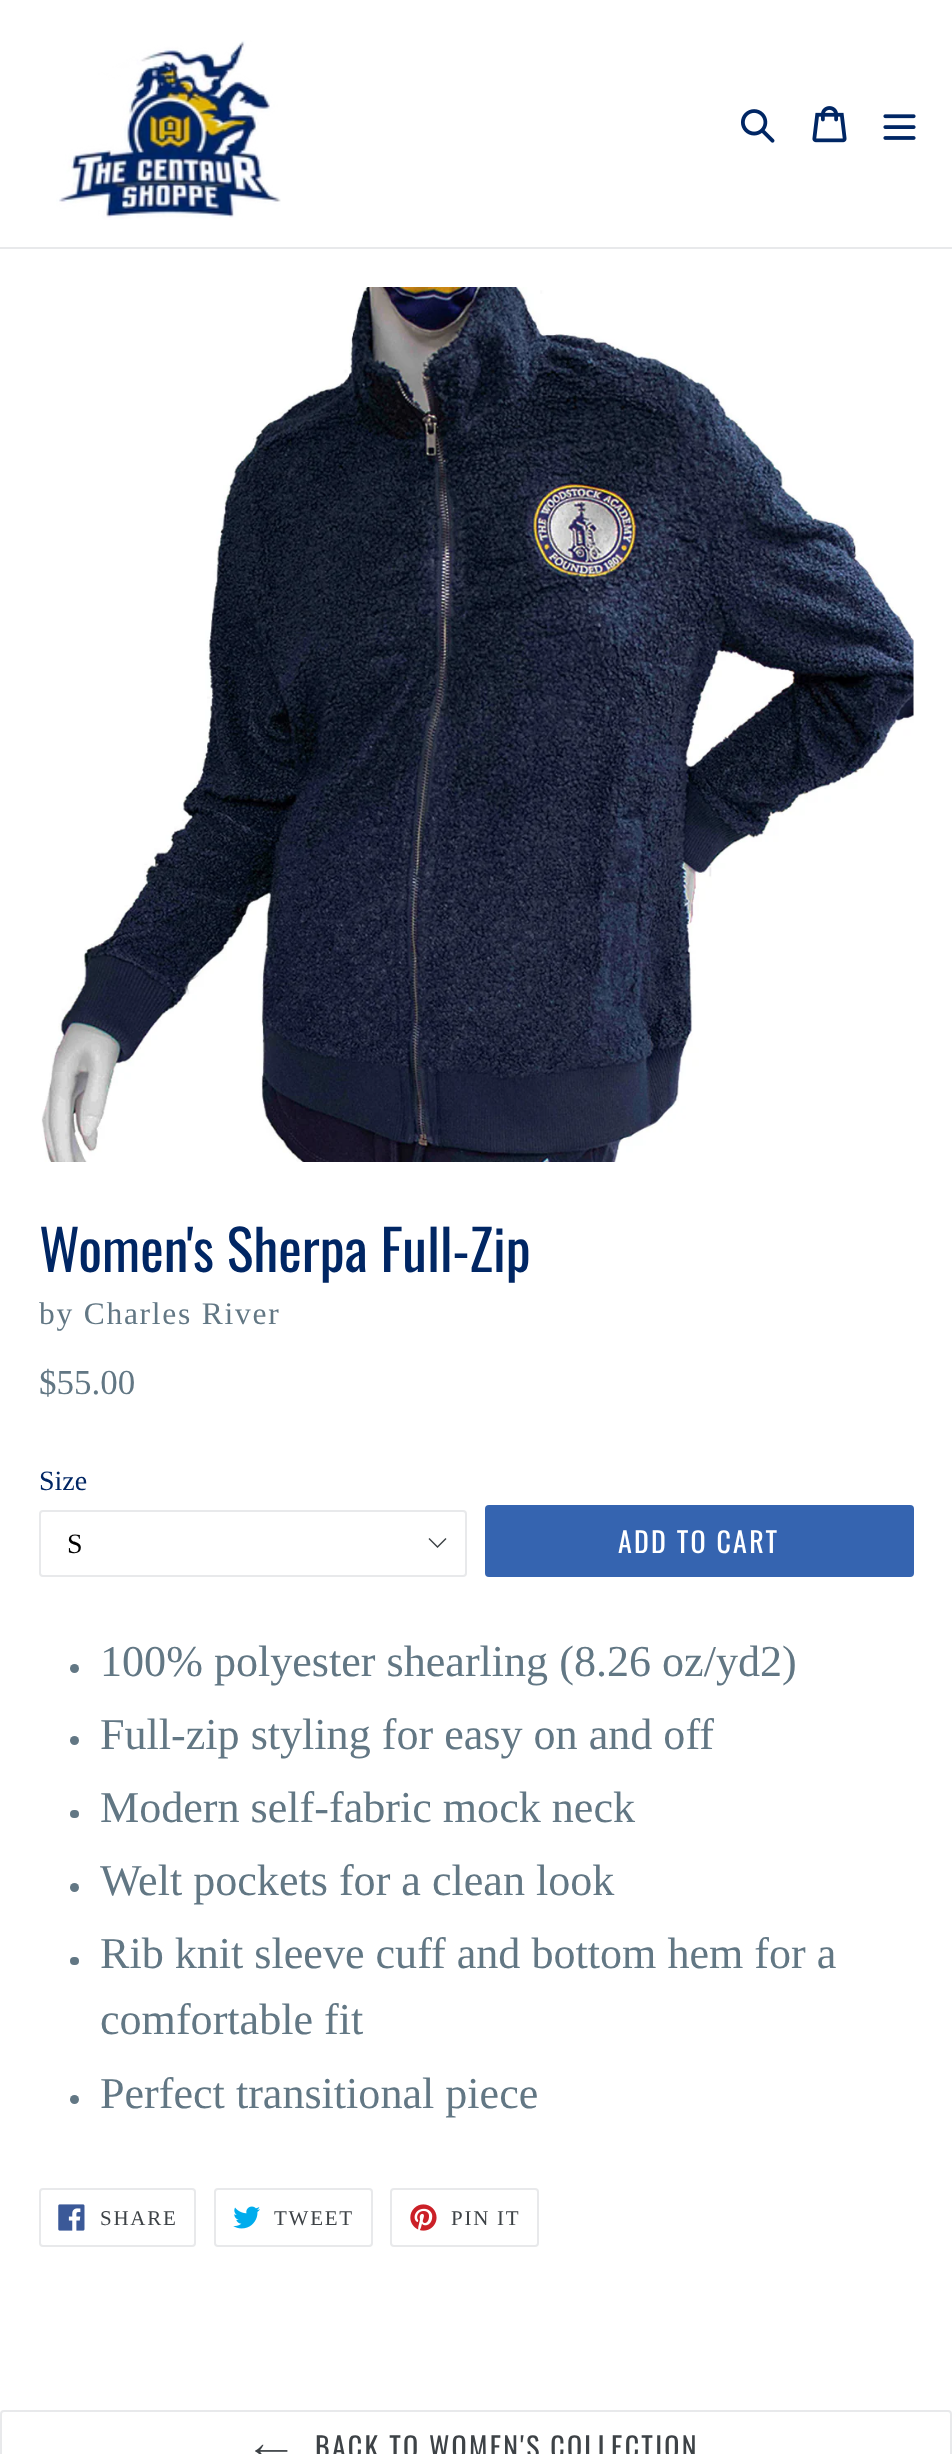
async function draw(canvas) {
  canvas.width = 952
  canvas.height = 2454
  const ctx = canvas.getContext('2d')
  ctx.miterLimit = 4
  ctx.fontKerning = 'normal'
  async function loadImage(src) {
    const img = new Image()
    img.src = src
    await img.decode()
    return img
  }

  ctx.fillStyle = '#fff'
  ctx.fillRect(0, 0, 952, 2454)
  ctx.fillStyle = '#e8e9eb'
  ctx.fillRect(0, 247, 952, 2)
  ctx.drawImage(await loadImage('image0.png'), 56, 40, 225, 180)
  ctx.drawImage(await loadImage('image1.png'), 741, 109, 34, 34)
  ctx.drawImage(await loadImage('image2.png'), 812, 106, 35, 37)
  ctx.drawImage(await loadImage('image3.png'), 883, 114, 33, 26)
  ctx.drawImage(await loadImage('image4.png'), 41, 287, 873, 875)
  ctx.font = '56px Oswald'
  ctx.fillStyle = '#002664'
  ctx.fillText('Women\'s Sherpa Full-Zip', 39, 1272)
  ctx.letterSpacing = '1.75px'
  ctx.font = '31.5px Liberation Serif'
  ctx.fillStyle = '#627784'
  ctx.fillText('by Charles River', 39, 1324)
  ctx.letterSpacing = '0px'
  ctx.font = '35px Liberation Serif'
  ctx.fillText('$55.00', 39, 1394)
  ctx.font = '28px Liberation Serif'
  ctx.fillStyle = '#002664'
  ctx.fillText('Size', 39, 1490)
  ctx.fillStyle = '#3d4246'
  ctx.beginPath()
  ctx.moveTo(437.5, 1548)
  ctx.lineTo(428.5, 1539)
  ctx.lineTo(429.5, 1538)
  ctx.lineTo(437.5, 1546)
  ctx.lineTo(445.5, 1538)
  ctx.lineTo(446.5, 1539)
  ctx.closePath()
  ctx.fill()
  ctx.beginPath()
  ctx.roundRect(40, 1511, 426, 65, 3)
  ctx.strokeStyle = '#e8e9eb'
  ctx.lineWidth = 2
  ctx.stroke()
  ctx.fillStyle = '#000'
  ctx.fillText('S', 67, 1553)
  ctx.fillStyle = '#3564b0'
  ctx.beginPath()
  ctx.roundRect(485, 1505, 429, 72, 4)
  ctx.fill()
  ctx.letterSpacing = '2.25px'
  ctx.font = '28px Oswald'
  ctx.fillStyle = '#fff'
  ctx.fillText('ADD TO CART', 618, 1553)
  ctx.fillStyle = '#627784'
  ctx.beginPath()
  ctx.arc(74.5, 1668.5, 4.5, 0, 2 * Math.PI)
  ctx.fill()
  ctx.letterSpacing = '0px'
  ctx.font = '44.1px Liberation Serif'
  ctx.fillText('100% polyester shearling (8.26 oz/yd2)', 100, 1676)
  ctx.beginPath()
  ctx.arc(74.5, 1740.5, 4.5, 0, 2 * Math.PI)
  ctx.fill()
  ctx.fillText('Full-zip styling for easy on and off', 100, 1749)
  ctx.beginPath()
  ctx.roundRect(70, 1810, 9, 8, 4)
  ctx.fill()
  ctx.fillText('Modern self-fabric mock neck', 100, 1822)
  ctx.beginPath()
  ctx.arc(74.5, 1887.5, 4.5, 0, 2 * Math.PI)
  ctx.fill()
  ctx.fillText('Welt pockets for a clean look', 100, 1895)
  ctx.beginPath()
  ctx.roundRect(70, 1957, 9, 8, 4)
  ctx.fill()
  ctx.fillText('Rib knit sleeve cuff and bottom hem for a', 100, 1968)
  ctx.fillText('comfortable fit', 100, 2034)
  ctx.beginPath()
  ctx.arc(74.5, 2099.5, 4.5, 0, 2 * Math.PI)
  ctx.fill()
  ctx.fillText('Perfect transitional piece', 100, 2108)
  ctx.beginPath()
  ctx.roundRect(40, 2189, 155, 57, 3)
  ctx.stroke()
  ctx.drawImage(await loadImage('image5.png'), 58, 2204, 27, 27)
  ctx.letterSpacing = '1.75px'
  ctx.font = '21px Liberation Serif'
  ctx.fillStyle = '#3d4246'
  ctx.fillText('SHARE', 100, 2225)
  ctx.beginPath()
  ctx.roundRect(215, 2189, 157, 57, 3)
  ctx.stroke()
  ctx.drawImage(await loadImage('image6.png'), 233, 2206, 27, 23)
  ctx.fillText('TWEET', 274, 2225)
  ctx.beginPath()
  ctx.roundRect(391, 2189, 147, 57, 3)
  ctx.stroke()
  ctx.drawImage(await loadImage('image7.png'), 410, 2204, 27, 27)
  ctx.fillText('PIN IT', 451, 2225)
  ctx.beginPath()
  ctx.roundRect(1, 2411, 950, 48, 3)
  ctx.stroke()
  ctx.drawImage(await loadImage('image8.png'), 255, 2444, 33, 10)
  ctx.letterSpacing = '2.25px'
  ctx.font = '28px Oswald'
  ctx.fillText('BACK TO WOMEN\'S COLLECTION', 315, 2458)
}

draw(document.querySelector('canvas'))
